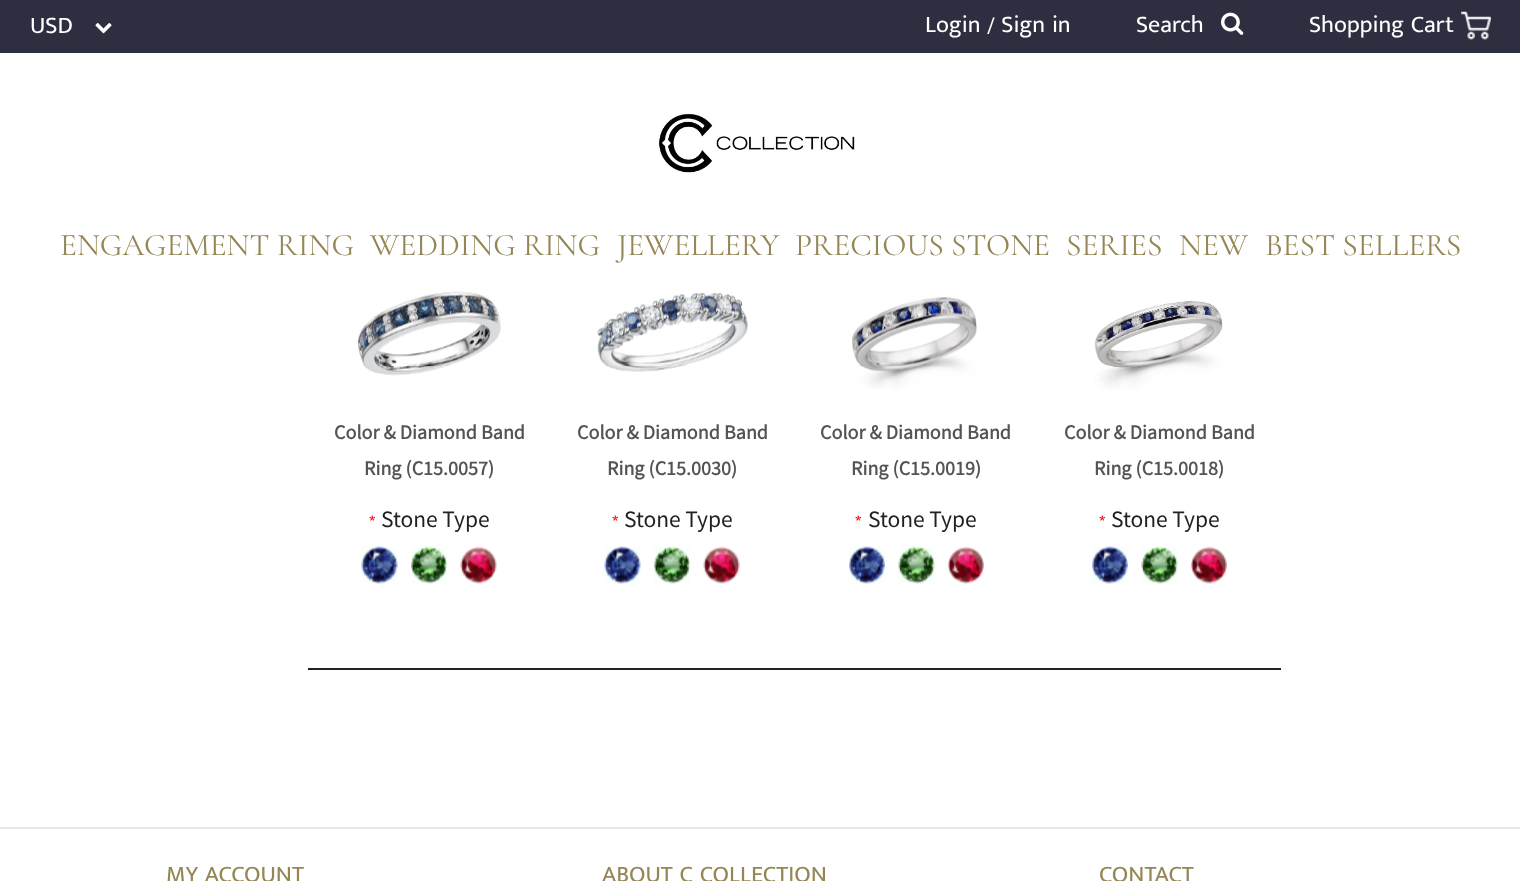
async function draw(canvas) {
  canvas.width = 1520
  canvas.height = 881
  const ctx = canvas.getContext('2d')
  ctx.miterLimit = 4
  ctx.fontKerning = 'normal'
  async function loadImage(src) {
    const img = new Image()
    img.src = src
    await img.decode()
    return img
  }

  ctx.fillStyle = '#fff'
  ctx.fillRect(0, 0, 1520, 881)
  ctx.fillStyle = '#2d2e40'
  ctx.fillRect(0, 0, 1520, 53)
  ctx.font = '24px Mukta Malar'
  ctx.fillStyle = '#fff'
  ctx.fillText('USD', 30, 33)
  ctx.drawImage(await loadImage('image0.png'), 95, 23, 17, 11)
  ctx.fillText('Login / Sign in', 925, 32)
  ctx.fillText('Search', 1136, 32)
  ctx.drawImage(await loadImage('image1.png'), 1221, 12, 23, 23)
  ctx.fillText('Shopping Cart', 1309, 32)
  ctx.drawImage(await loadImage('image2.png'), 1461, 11, 30, 29)
  ctx.drawImage(await loadImage('image3.png'), 659, 114, 196, 59)
  ctx.font = '300 31.5px Cormorant Garamond'
  ctx.fillStyle = '#948655'
  ctx.fillText('ENGAGEMENT RING', 60, 255)
  ctx.fillText('WEDDING RING', 370, 255)
  ctx.fillText('JEWELLERY', 617, 255)
  ctx.fillText('PRECIOUS STONE', 795, 255)
  ctx.fillText('SERIES', 1066, 255)
  ctx.fillText('NEW', 1179, 255)
  ctx.fillText('BEST SELLERS', 1265, 255)
  ctx.fillStyle = '#222'
  ctx.fillRect(308, 668, 973, 2)
  ctx.drawImage(await loadImage('image4.png'), 358, 291, 143, 85)
  ctx.font = 'bold 18px Noto Sans JP'
  ctx.fillStyle = '#545454'
  ctx.fillText('Color & Diamond Band', 334, 439)
  ctx.fillText('Ring (C15.0057)', 364, 475)
  ctx.font = '21px Mukta Malar'
  ctx.fillStyle = '#f00'
  ctx.fillText('*', 369, 527)
  ctx.font = '100 21px Noto Sans JP'
  ctx.fillStyle = '#212121'
  ctx.fillText('Stone Type', 381, 527)
  ctx.drawImage(await loadImage('image5.png'), 361, 546, 37, 38)
  ctx.drawImage(await loadImage('image6.png'), 411, 546, 36, 38)
  ctx.drawImage(await loadImage('image7.png'), 460, 546, 37, 38)
  ctx.drawImage(await loadImage('image8.png'), 597, 292, 151, 80)
  ctx.font = 'bold 18px Noto Sans JP'
  ctx.fillStyle = '#545454'
  ctx.fillText('Color & Diamond Band', 577, 439)
  ctx.fillText('Ring (C15.0030)', 607, 475)
  ctx.font = '21px Mukta Malar'
  ctx.fillStyle = '#f00'
  ctx.fillText('*', 612, 527)
  ctx.font = '100 21px Noto Sans JP'
  ctx.fillStyle = '#212121'
  ctx.fillText('Stone Type', 624, 527)
  ctx.drawImage(await loadImage('image5.png'), 604, 546, 37, 38)
  ctx.drawImage(await loadImage('image9.png'), 654, 546, 36, 38)
  ctx.drawImage(await loadImage('image10.png'), 703, 546, 37, 38)
  ctx.drawImage(await loadImage('image11.png'), 852, 297, 125, 92)
  ctx.font = 'bold 18px Noto Sans JP'
  ctx.fillStyle = '#545454'
  ctx.fillText('Color & Diamond Band', 820, 439)
  ctx.fillText('Ring (C15.0019)', 851, 475)
  ctx.font = '21px Mukta Malar'
  ctx.fillStyle = '#f00'
  ctx.fillText('*', 855, 527)
  ctx.font = '100 21px Noto Sans JP'
  ctx.fillStyle = '#212121'
  ctx.fillText('Stone Type', 868, 527)
  ctx.drawImage(await loadImage('image12.png'), 849, 546, 36, 38)
  ctx.drawImage(await loadImage('image13.png'), 898, 546, 37, 38)
  ctx.drawImage(await loadImage('image14.png'), 948, 546, 36, 38)
  ctx.drawImage(await loadImage('image15.png'), 1094, 301, 129, 90)
  ctx.font = 'bold 18px Noto Sans JP'
  ctx.fillStyle = '#545454'
  ctx.fillText('Color & Diamond Band', 1064, 439)
  ctx.fillText('Ring (C15.0018)', 1094, 475)
  ctx.font = '21px Mukta Malar'
  ctx.fillStyle = '#f00'
  ctx.fillText('*', 1099, 527)
  ctx.font = '100 21px Noto Sans JP'
  ctx.fillStyle = '#212121'
  ctx.fillText('Stone Type', 1111, 527)
  ctx.drawImage(await loadImage('image16.png'), 1092, 546, 36, 38)
  ctx.drawImage(await loadImage('image17.png'), 1141, 546, 37, 38)
  ctx.drawImage(await loadImage('image14.png'), 1191, 546, 36, 38)
  ctx.fillStyle = '#e8e8e8'
  ctx.fillRect(0, 827, 1520, 2)
  ctx.font = '24px Mukta Malar'
  ctx.fillStyle = '#948655'
  ctx.fillText('MY ACCOUNT', 166, 882)
  ctx.fillText('ABOUT C COLLECTION', 602, 882)
  ctx.fillText('CONTACT', 1099, 882)
}

draw(document.querySelector('canvas'))
